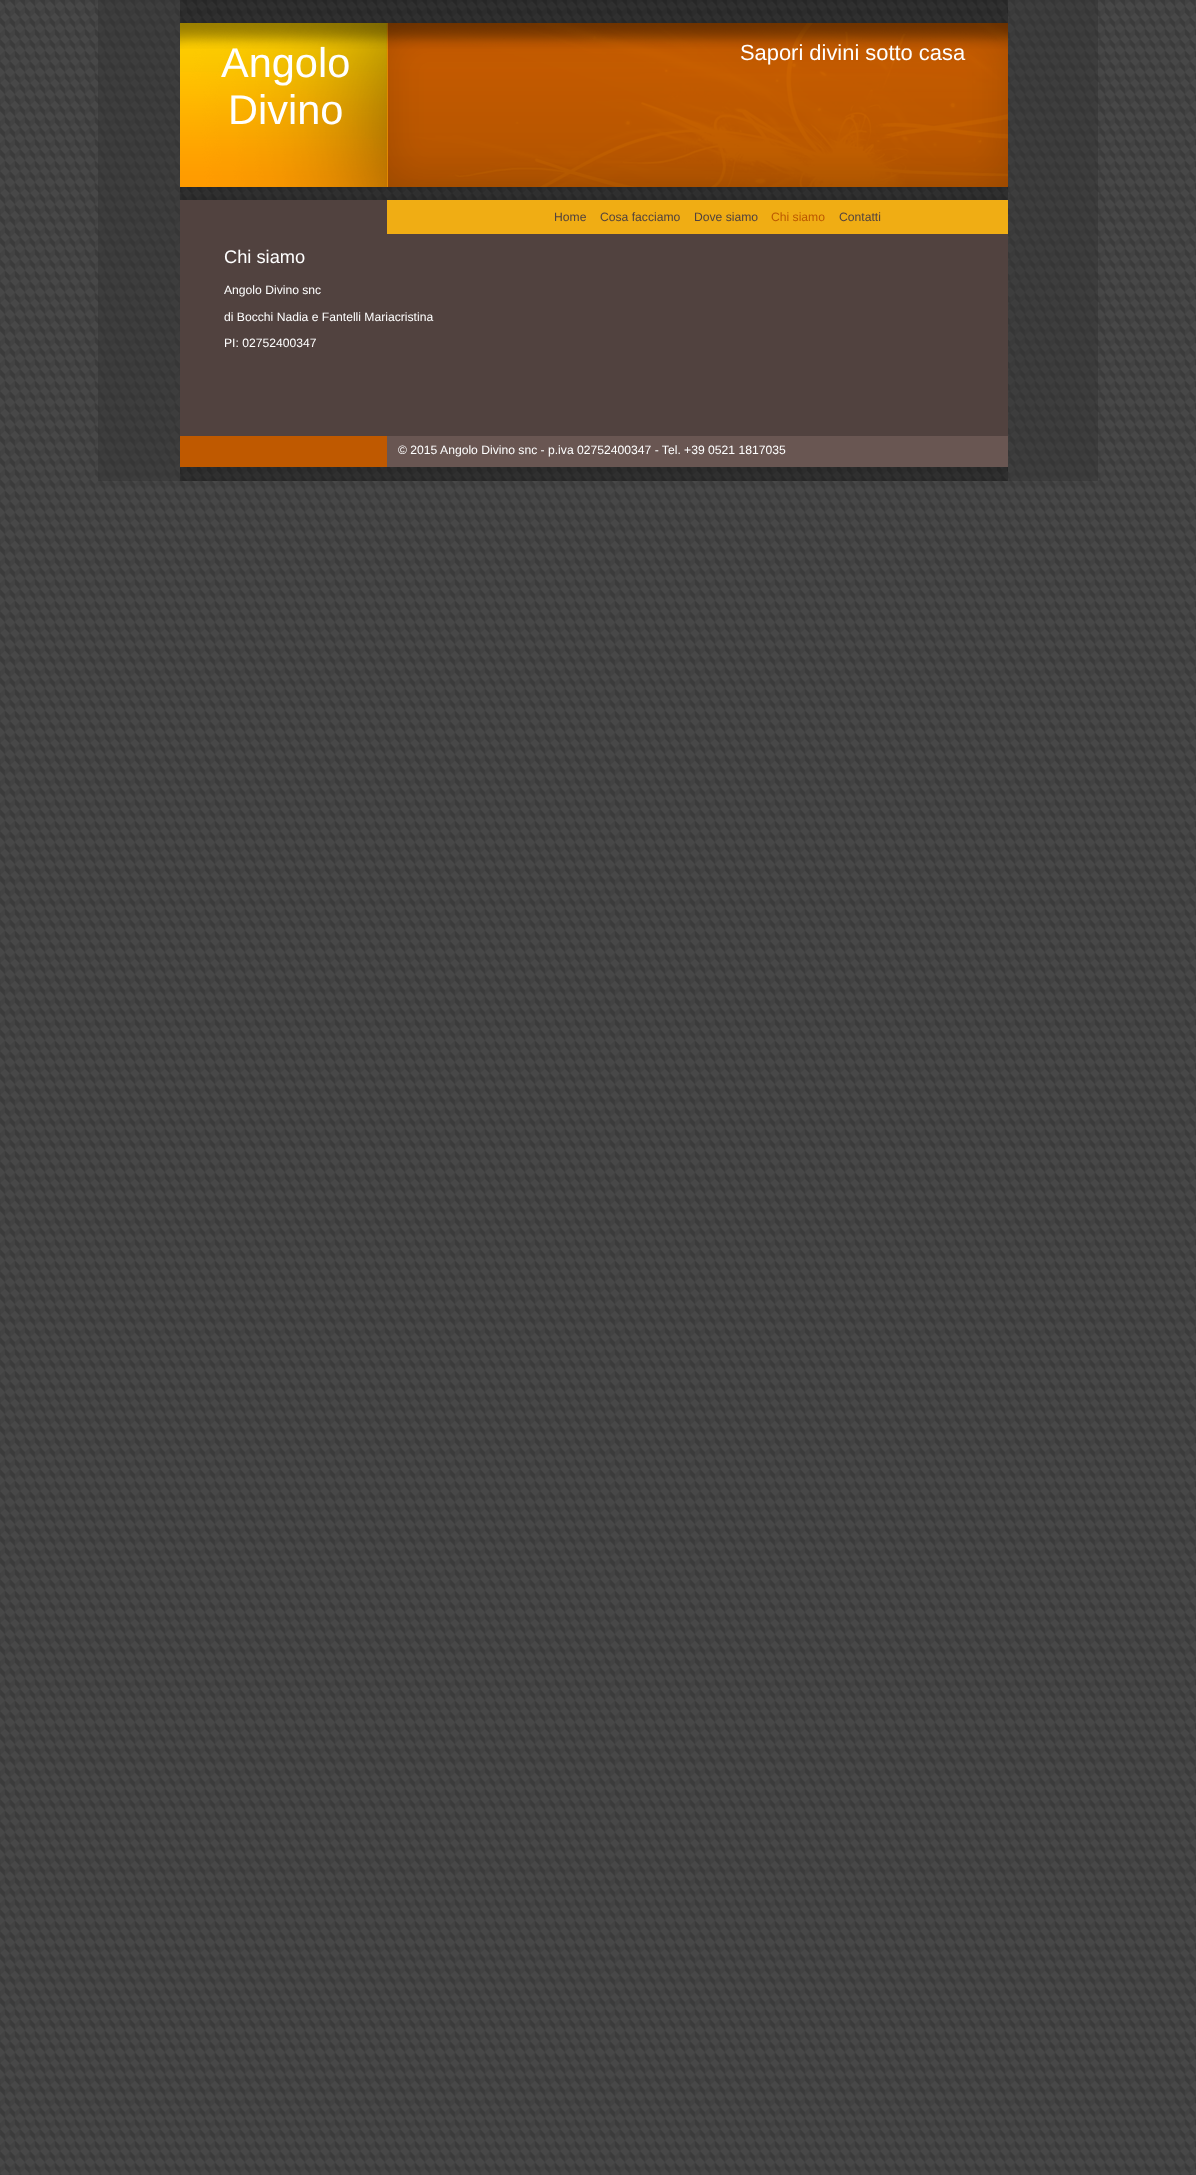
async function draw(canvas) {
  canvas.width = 1196
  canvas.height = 2175
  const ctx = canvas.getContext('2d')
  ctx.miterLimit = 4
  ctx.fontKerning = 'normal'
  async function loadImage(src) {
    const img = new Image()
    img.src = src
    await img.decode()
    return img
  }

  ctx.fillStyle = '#fff'
  ctx.fillRect(0, 0, 1196, 2175)
  ctx.drawImage(await loadImage('image0.png'), 0, 0, 1196, 2175)
  ctx.drawImage(await loadImage('image1.png'), 98, 0, 1000, 481)
  ctx.drawImage(await loadImage('image2.png'), 180, 0, 828, 200)
  ctx.font = '41.5px Liberation Sans'
  ctx.fillText('Angolo', 221, 77)
  ctx.fillText('Divino', 228, 124)
  ctx.font = '21.9px Liberation Sans'
  ctx.fillText('Sapori divini sotto casa', 740, 60)
  ctx.fillStyle = '#f0ad14'
  ctx.fillRect(387, 200, 621, 34)
  ctx.font = '12.15px Liberation Sans'
  ctx.fillStyle = '#51423f'
  ctx.fillText('Home', 554, 221)
  ctx.fillText('Cosa facciamo', 600, 221)
  ctx.fillText('Dove siamo', 694, 221)
  ctx.fillStyle = '#bb5802'
  ctx.fillText('Chi siamo', 771, 221)
  ctx.fillStyle = '#51423f'
  ctx.fillText('Contatti', 839, 221)
  ctx.font = '18.25px Liberation Sans'
  ctx.fillStyle = '#fff'
  ctx.fillText('Chi siamo', 224, 263)
  ctx.font = '12.15px Liberation Sans'
  ctx.fillText('Angolo Divino snc', 224, 294)
  ctx.fillText('di Bocchi Nadia e Fantelli Mariacristina', 224, 321)
  ctx.fillText('PI: 02752400347', 224, 347)
  ctx.drawImage(await loadImage('image3.png'), 180, 436, 828, 45)
  ctx.fillText('© 2015 Angolo Divino snc - p.iva 02752400347 - Tel. +39 0521 1817035', 398, 454)
}

draw(document.querySelector('canvas'))
